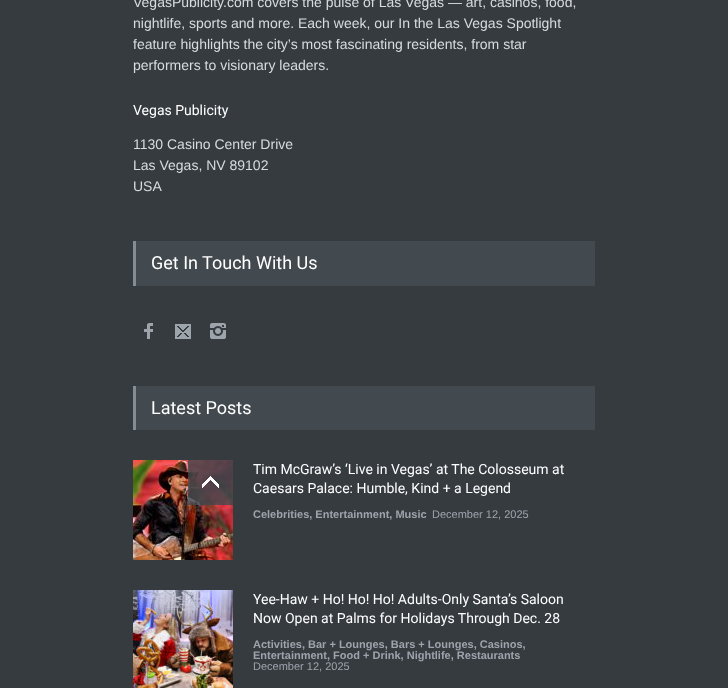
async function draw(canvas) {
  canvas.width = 728
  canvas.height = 688
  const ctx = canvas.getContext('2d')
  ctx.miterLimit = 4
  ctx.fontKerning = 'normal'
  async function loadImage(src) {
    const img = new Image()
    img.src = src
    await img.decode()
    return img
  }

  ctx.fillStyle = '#363b40'
  ctx.fillRect(0, 0, 728, 688)
  ctx.font = '14px Liberation Sans'
  ctx.fillStyle = '#d7dce0'
  ctx.fillText('VegasPublicity.com covers the pulse of Las Vegas — art, casinos, food,', 133, 7)
  ctx.fillText('nightlife, sports and more. Each week, our In the Las Vegas Spotlight', 133, 28)
  ctx.fillText('feature highlights the city’s most fascinating residents, from star', 133, 49)
  ctx.fillText('performers to visionary leaders.', 133, 70)
  ctx.font = '14px Roboto'
  ctx.fillStyle = '#fff'
  ctx.fillText('Vegas Publicity', 133, 115)
  ctx.font = '14px Liberation Sans'
  ctx.fillStyle = '#d7dce0'
  ctx.fillText('1130 Casino Center Drive', 133, 149)
  ctx.fillText('Las Vegas, NV 89102', 133, 170)
  ctx.fillText('USA', 133, 191)
  ctx.fillStyle = '#42494f'
  ctx.fillRect(136, 241, 459, 45)
  ctx.fillStyle = '#858d94'
  ctx.fillRect(133, 241, 3, 45)
  ctx.font = '18px Roboto'
  ctx.fillStyle = '#fff'
  ctx.fillText('Get In Touch With Us', 151, 269)
  ctx.drawImage(await loadImage('image0.png'), 144, 323, 9, 16)
  ctx.drawImage(await loadImage('image1.png'), 175, 324, 16, 15)
  ctx.drawImage(await loadImage('image2.png'), 210, 323, 16, 16)
  ctx.fillStyle = '#42494f'
  ctx.fillRect(136, 386, 459, 44)
  ctx.fillStyle = '#858d94'
  ctx.fillRect(133, 386, 3, 44)
  ctx.fillStyle = '#fff'
  ctx.fillText('Latest Posts', 151, 414)
  ctx.drawImage(await loadImage('image4.png'), 133, 460, 100, 100)
  ctx.fillStyle = '#42494fcc'
  ctx.fillRect(188, 460, 45, 45)
  ctx.drawImage(await loadImage('image3.png'), 202, 476, 17, 12)
  ctx.font = '14px Roboto'
  ctx.fillStyle = '#fff'
  ctx.fillText('Tim McGraw’s ‘Live in Vegas’ at The Colosseum at', 253, 474)
  ctx.fillText('Caesars Palace: Humble, Kind + a Legend', 253, 493)
  ctx.font = 'bold 11px Liberation Sans'
  ctx.fillStyle = '#9da4ab'
  ctx.fillText('Celebrities, Entertainment, Music', 253, 518)
  ctx.font = '11px Liberation Sans'
  ctx.fillText('December 12, 2025', 432, 518)
  ctx.drawImage(await loadImage('image5.png'), 133, 590, 100, 98)
  ctx.font = '14px Roboto'
  ctx.fillStyle = '#fff'
  ctx.fillText('Yee-Haw + Ho! Ho! Ho! Adults-Only Santa’s Saloon', 253, 604)
  ctx.fillText('Now Open at Palms for Holidays Through Dec. 28', 253, 623)
  ctx.font = 'bold 11px Liberation Sans'
  ctx.fillStyle = '#9da4ab'
  ctx.fillText('Activities, Bar + Lounges, Bars + Lounges, Casinos,', 253, 648)
  ctx.fillText('Entertainment, Food + Drink, Nightlife, Restaurants', 253, 659)
  ctx.font = '11px Liberation Sans'
  ctx.fillText('December 12, 2025', 253, 670)
}

draw(document.querySelector('canvas'))
